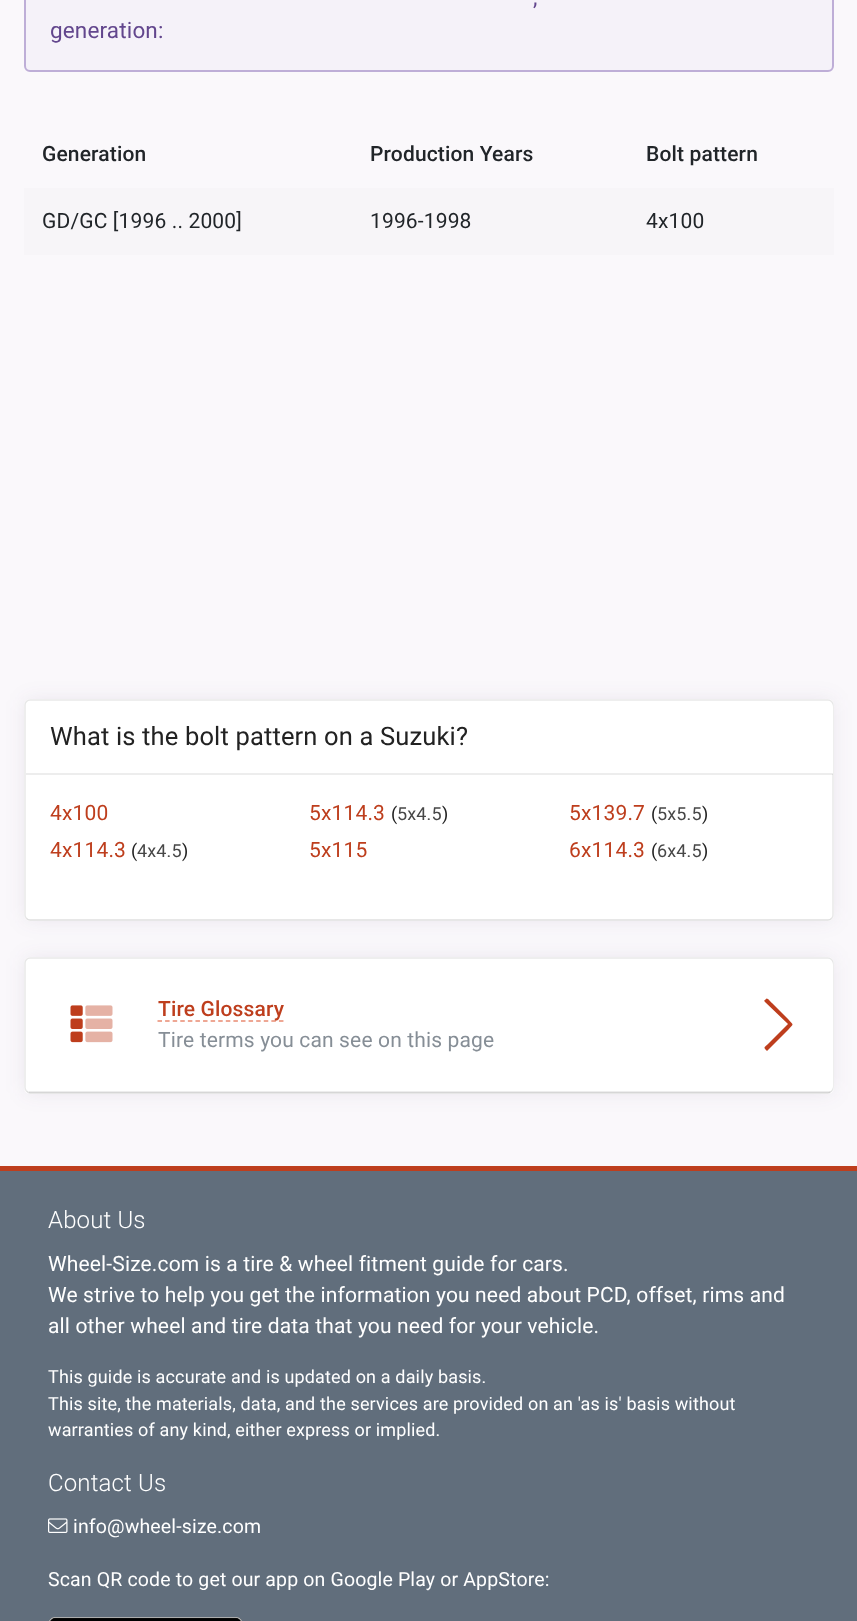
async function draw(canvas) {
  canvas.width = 857
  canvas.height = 1621
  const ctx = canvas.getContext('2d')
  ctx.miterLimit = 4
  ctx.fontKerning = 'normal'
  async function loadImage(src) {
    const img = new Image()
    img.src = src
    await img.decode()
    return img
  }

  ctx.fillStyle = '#616e7c'
  ctx.fillRect(0, 0, 857, 1621)
  ctx.fillStyle = '#faf8fb'
  ctx.fillRect(0, 0, 857, 1166)
  ctx.fillStyle = '#f5f2f9'
  ctx.beginPath()
  ctx.roundRect(25, -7, 808, 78, 5)
  ctx.fill()
  ctx.strokeStyle = '#beaed7'
  ctx.lineWidth = 2
  ctx.stroke()
  ctx.letterSpacing = '0.15px'
  ctx.font = '22.5px Roboto'
  ctx.fillStyle = '#62468d'
  ctx.fillText(',', 533, 5)
  ctx.fillText('generation:', 50, 38)
  ctx.font = '500 21px Roboto'
  ctx.fillStyle = '#212529'
  ctx.fillText('Generation', 42, 161)
  ctx.fillText('Production Years', 370, 161)
  ctx.fillText('Bolt pattern', 646, 161)
  ctx.fillStyle = '#f7f5f8'
  ctx.fillRect(24, 188, 810, 67)
  ctx.font = '21px Roboto'
  ctx.fillStyle = '#212529'
  ctx.fillText('GD/GC [1996 .. 2000]', 42, 228)
  ctx.fillText('1996-1998', 370, 228)
  ctx.fillText('4x100', 646, 228)
  ctx.fillStyle = '#3e2c5a14'
  ctx.filter = 'blur(10px)'
  ctx.beginPath()
  ctx.roundRect(24, 699, 810, 222, 6)
  ctx.fill()
  ctx.filter = 'none'
  ctx.fillStyle = '#fff'
  ctx.beginPath()
  ctx.roundRect(24, 699, 810, 222, 6)
  ctx.fill()
  ctx.beginPath()
  ctx.moveTo(831.5, 918.5)
  ctx.bezierCurveTo(830.5, 919.5, 829.5, 920, 828, 920)
  ctx.lineTo(30, 920)
  ctx.bezierCurveTo(28.5, 920, 27.5, 919.5, 26.5, 918.5)
  ctx.strokeStyle = '#e0e0e0'
  ctx.lineWidth = 1.5
  ctx.stroke()
  ctx.beginPath()
  ctx.moveTo(26.5, 918.5)
  ctx.bezierCurveTo(25.5, 917.5, 25, 916.5, 25, 915)
  ctx.lineTo(25, 705)
  ctx.bezierCurveTo(25, 703.5, 25.5, 702.5, 26.5, 701.5)
  ctx.bezierCurveTo(27.5, 700.5, 28.5, 700, 30, 700)
  ctx.lineTo(828, 700)
  ctx.bezierCurveTo(829.5, 700, 830.5, 700.5, 831.5, 701.5)
  ctx.bezierCurveTo(832.5, 702.5, 833, 703.5, 833, 705)
  ctx.lineTo(833, 915)
  ctx.bezierCurveTo(833, 916.5, 832.5, 917.5, 831.5, 918.5)
  ctx.strokeStyle = '#00000017'
  ctx.stroke()
  ctx.beginPath()
  ctx.roundRect(26, 701, 807, 73, [6, 6, 0, 0])
  ctx.fill()
  ctx.fillStyle = '#00000012'
  ctx.fillRect(26, 773, 807, 2)
  ctx.font = '25.5px Roboto'
  ctx.fillStyle = '#222'
  ctx.fillText('What is the bolt pattern on a Suzuki?', 50, 745)
  ctx.font = '21px Roboto'
  ctx.fillStyle = '#be3e1d'
  ctx.fillText('4x100', 50, 820)
  ctx.fillText('5x114.3', 309, 820)
  ctx.font = '18px Roboto'
  ctx.fillStyle = '#222'
  ctx.fillText('(', 391, 820)
  ctx.fillStyle = '#474747'
  ctx.fillText('5x4.5', 397, 820)
  ctx.fillStyle = '#222'
  ctx.fillText(')', 442, 820)
  ctx.font = '21px Roboto'
  ctx.fillStyle = '#be3e1d'
  ctx.fillText('5x139.7', 569, 820)
  ctx.font = '18px Roboto'
  ctx.fillStyle = '#222'
  ctx.fillText('(', 651, 820)
  ctx.fillStyle = '#474747'
  ctx.fillText('5x5.5', 657, 820)
  ctx.fillStyle = '#222'
  ctx.fillText(')', 702, 820)
  ctx.font = '21px Roboto'
  ctx.fillStyle = '#be3e1d'
  ctx.fillText('4x114.3', 50, 857)
  ctx.font = '18px Roboto'
  ctx.fillStyle = '#222'
  ctx.fillText('(', 131, 857)
  ctx.fillStyle = '#474747'
  ctx.fillText('4x4.5', 137, 857)
  ctx.fillStyle = '#222'
  ctx.fillText(')', 182, 857)
  ctx.font = '21px Roboto'
  ctx.fillStyle = '#be3e1d'
  ctx.fillText('5x115', 309, 857)
  ctx.fillText('6x114.3', 569, 857)
  ctx.font = '18px Roboto'
  ctx.fillStyle = '#222'
  ctx.fillText('(', 651, 857)
  ctx.fillStyle = '#474747'
  ctx.fillText('6x4.5', 657, 857)
  ctx.fillStyle = '#222'
  ctx.fillText(')', 702, 857)
  ctx.fillStyle = '#3e2c5a14'
  ctx.filter = 'blur(10px)'
  ctx.beginPath()
  ctx.roundRect(24, 957, 810, 137, 6)
  ctx.fill()
  ctx.filter = 'none'
  ctx.fillStyle = '#fff'
  ctx.beginPath()
  ctx.roundRect(24, 957, 810, 137, 6)
  ctx.fill()
  ctx.beginPath()
  ctx.moveTo(831.5, 1091)
  ctx.bezierCurveTo(830.5, 1092, 829.5, 1093, 828, 1093)
  ctx.lineTo(30, 1093)
  ctx.bezierCurveTo(28.5, 1093, 27.5, 1092, 26.5, 1091)
  ctx.strokeStyle = '#e0e0e0'
  ctx.stroke()
  ctx.beginPath()
  ctx.moveTo(26.5, 1091)
  ctx.bezierCurveTo(25.5, 1090, 25, 1089, 25, 1087.5)
  ctx.lineTo(25, 963)
  ctx.bezierCurveTo(25, 961.5, 25.5, 960.5, 26.5, 959.5)
  ctx.bezierCurveTo(27.5, 958.5, 28.5, 958, 30, 958)
  ctx.lineTo(828, 958)
  ctx.bezierCurveTo(829.5, 958, 830.5, 958.5, 831.5, 959.5)
  ctx.bezierCurveTo(832.5, 960.5, 833, 961.5, 833, 963)
  ctx.lineTo(833, 1087.5)
  ctx.bezierCurveTo(833, 1089, 832.5, 1090, 831.5, 1091)
  ctx.strokeStyle = '#00000017'
  ctx.stroke()
  ctx.beginPath()
  ctx.roundRect(26, 959, 807, 133, 6)
  ctx.fill()
  ctx.fillStyle = '#00000012'
  ctx.fillRect(29, 1091, 801, 2)
  ctx.drawImage(await loadImage('image0.png'), 70, 1005, 13, 38)
  ctx.drawImage(await loadImage('image1.png'), 85, 1005, 28, 38)
  ctx.beginPath()
  ctx.moveTo(157.5, 1021)
  ctx.lineTo(283.5, 1021)
  ctx.strokeStyle = '#e98a71'
  ctx.setLineDash([4.5, 3.09])
  ctx.stroke()
  ctx.font = '500 21px Roboto'
  ctx.fillStyle = '#be3e1d'
  ctx.fillText('Tire Glossary', 158, 1016)
  ctx.font = '21px Roboto'
  ctx.fillStyle = '#868e96'
  ctx.fillText('Tire terms you can see on this page', 158, 1047)
  ctx.fillStyle = '#be3e1d'
  ctx.beginPath()
  ctx.moveTo(766, 999)
  ctx.bezierCurveTo(767, 997, 770, 1001, 772, 1003)
  ctx.lineTo(788, 1019)
  ctx.bezierCurveTo(794, 1026, 794, 1023, 788, 1030)
  ctx.lineTo(767, 1051)
  ctx.lineTo(766, 1050)
  ctx.bezierCurveTo(763, 1047, 765, 1047, 768, 1044)
  ctx.lineTo(788, 1024)
  ctx.lineTo(765, 1002)
  ctx.bezierCurveTo(764, 1001, 764, 1000, 765, 1000)
  ctx.closePath()
  ctx.fill()
  ctx.fillRect(0, 1166, 857, 5)
  ctx.font = '300 24px Roboto'
  ctx.fillStyle = '#fff'
  ctx.fillText('About Us', 48, 1228)
  ctx.font = '21px Roboto'
  ctx.fillText('Wheel-Size.com is a tire & wheel fitment guide for cars.', 48, 1271)
  ctx.fillText('We strive to help you get the information you need about PCD, offset, rims and', 48, 1302)
  ctx.fillText('all other wheel and tire data that you need for your vehicle.', 48, 1333)
  ctx.font = '18px Roboto'
  ctx.fillText('This guide is accurate and is updated on a daily basis.', 48, 1383)
  ctx.fillText('This site, the materials, data, and the services are provided on an \'as is\' basis without', 48, 1410)
  ctx.fillText('warranties of any kind, either express or implied.', 48, 1436)
  ctx.font = '300 24px Roboto'
  ctx.fillText('Contact Us', 48, 1491)
  ctx.drawImage(await loadImage('image2.png'), 48, 1518, 20, 15)
  ctx.font = '19.5px Roboto'
  ctx.fillText('info@wheel-size.com', 73, 1533)
  ctx.fillText('Scan QR code to get our app on Google Play or AppStore:', 48, 1586)
  ctx.drawImage(await loadImage('image3.png'), 49, 1617, 193, 4)
}

draw(document.querySelector('canvas'))
